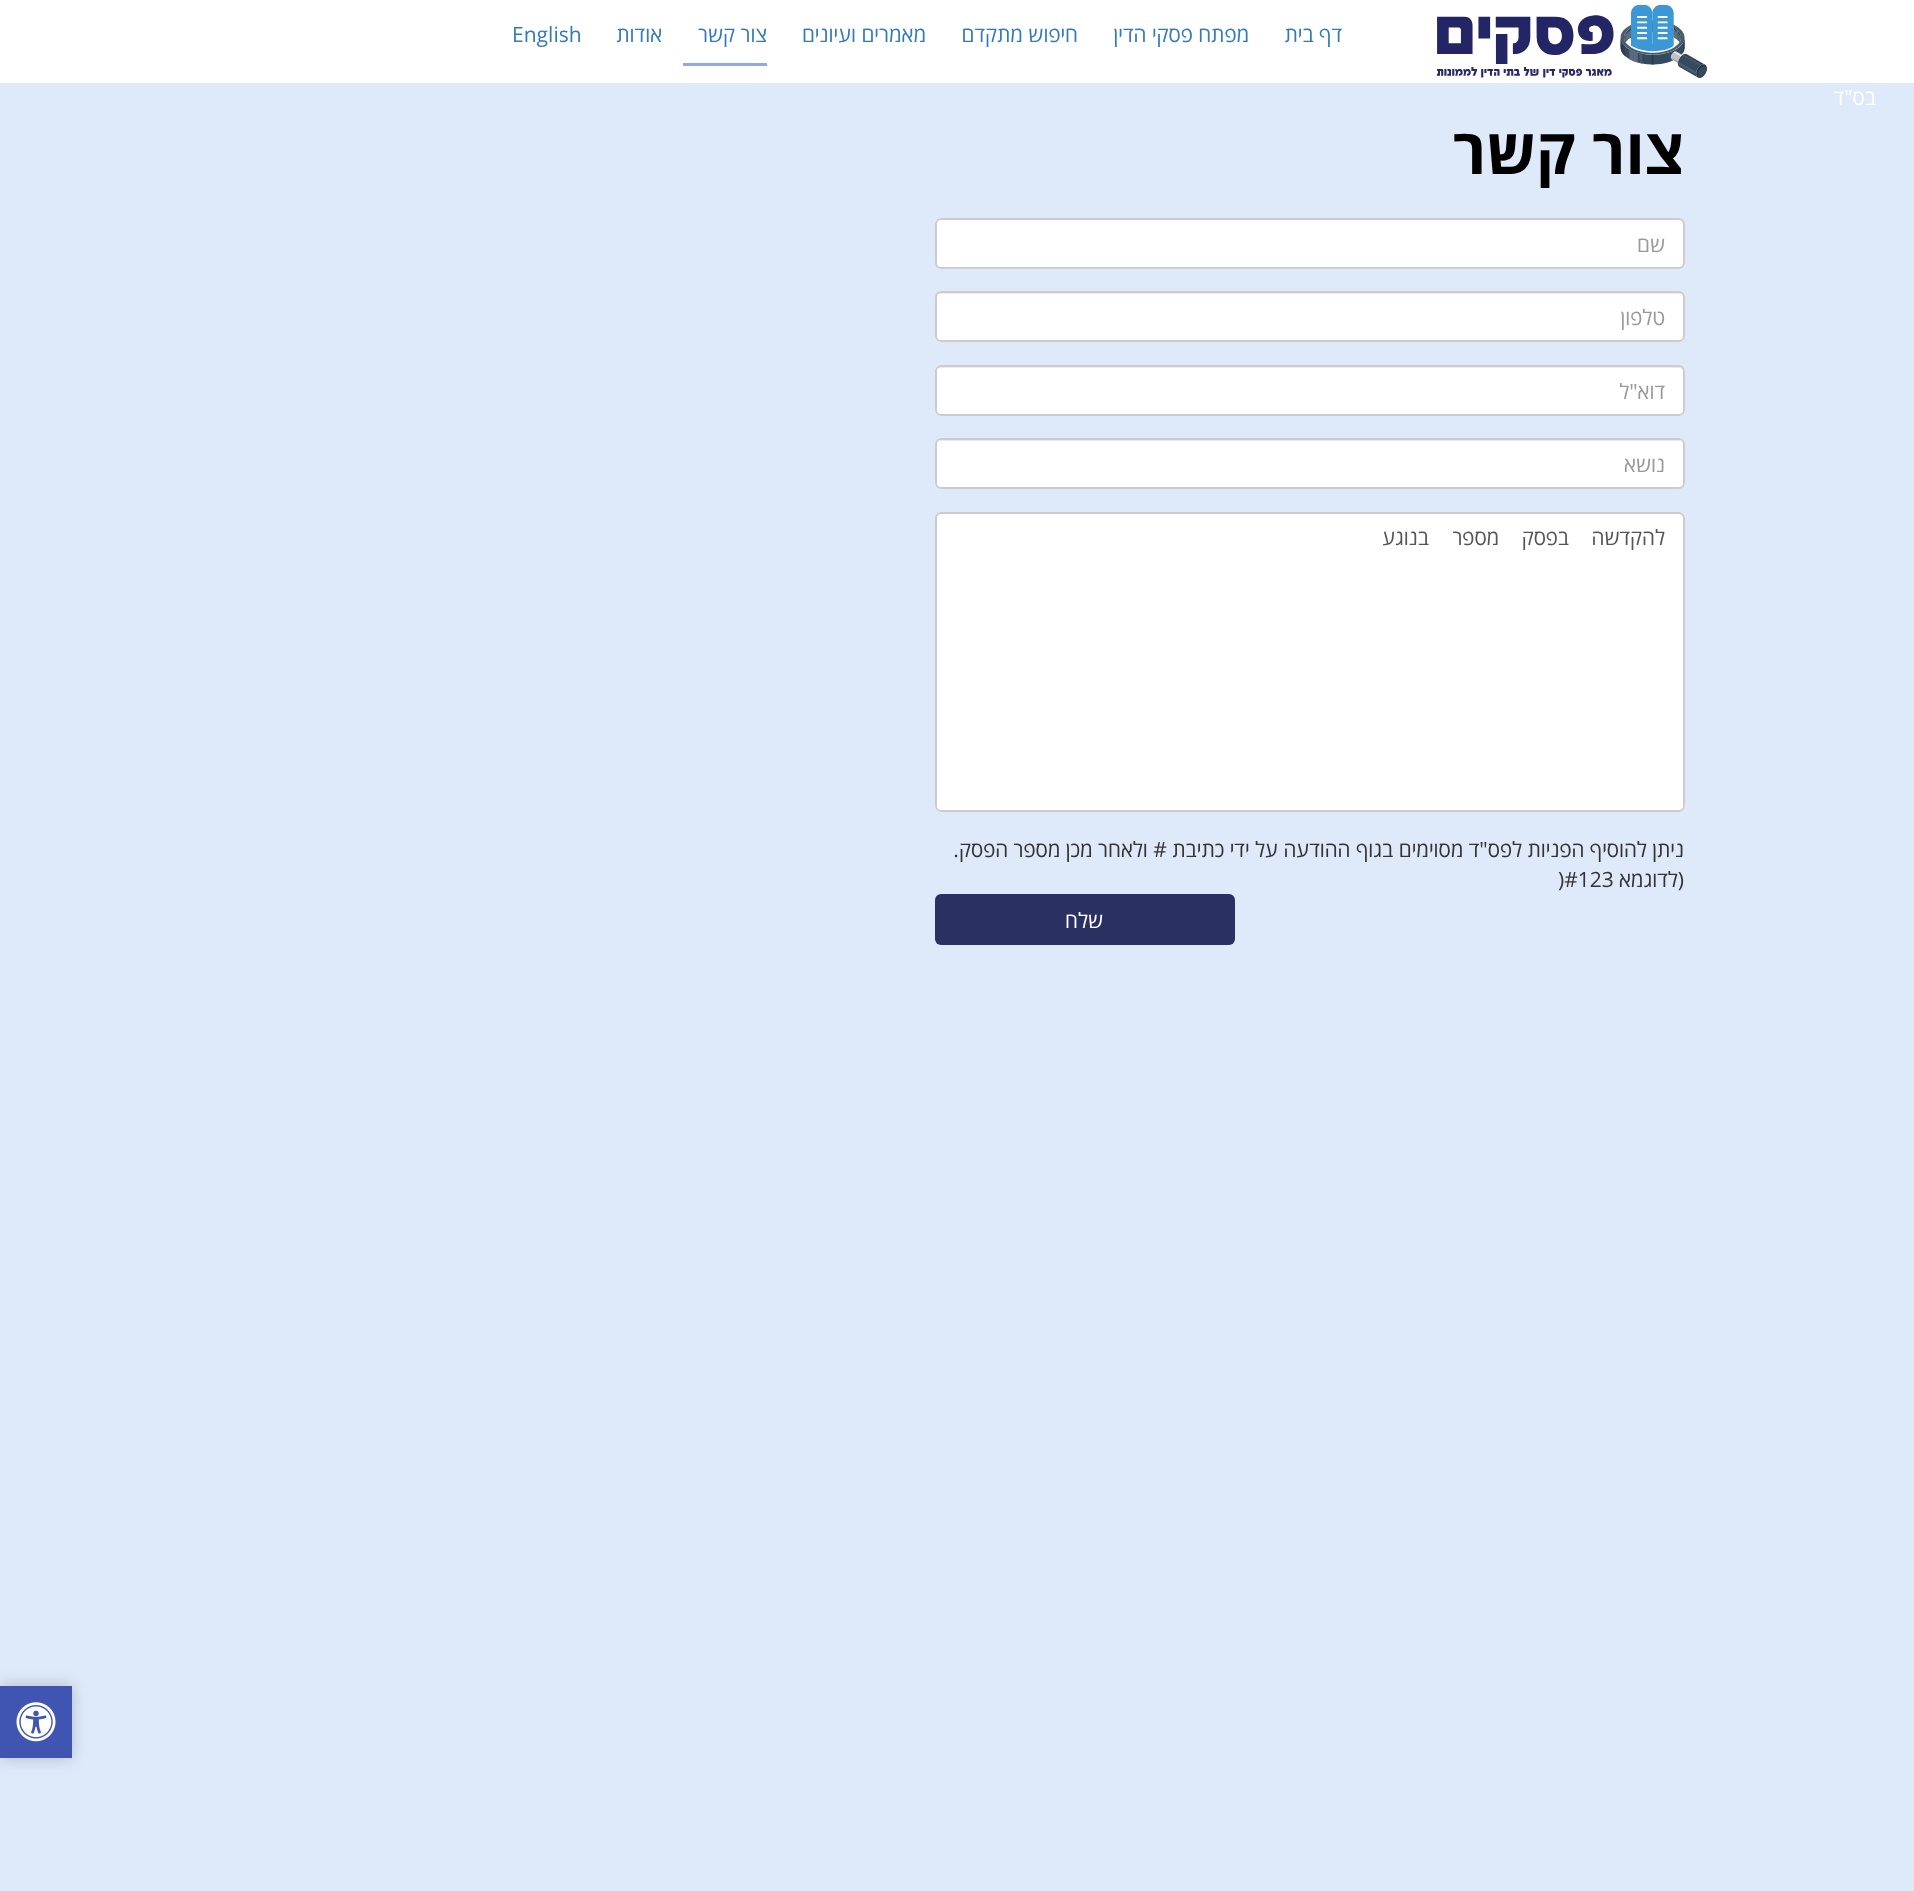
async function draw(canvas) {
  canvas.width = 1914
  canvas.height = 1891
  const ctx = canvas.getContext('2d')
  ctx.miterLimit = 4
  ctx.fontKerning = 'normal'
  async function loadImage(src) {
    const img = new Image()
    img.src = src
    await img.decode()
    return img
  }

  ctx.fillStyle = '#fff'
  ctx.fillRect(0, 0, 1914, 1891)
  ctx.drawImage(await loadImage('image0.png'), 1437, 5, 270, 73)
  ctx.direction = 'rtl'
  ctx.font = '21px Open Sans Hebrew'
  ctx.fillStyle = '#337ab7'
  ctx.fillText('דף בית', 1342, 42)
  ctx.fillText('מפתח פסקי הדין', 1249, 42)
  ctx.fillText('חיפוש מתקדם', 1078, 42)
  ctx.fillText('מאמרים ועיונים', 926, 42)
  ctx.fillText('צור קשר', 767, 42)
  ctx.fillStyle = '#91a7e7'
  ctx.fillRect(683, 63, 84, 3)
  ctx.fillStyle = '#337ab7'
  ctx.fillText('אודות', 662, 42)
  ctx.direction = 'ltr'
  ctx.fillText('English', 512, 42)
  ctx.fillStyle = '#dee9fa'
  ctx.fillRect(0, 83, 1914, 1808)
  ctx.direction = 'rtl'
  ctx.fillStyle = '#fff'
  ctx.fillText('בס"ד', 1876, 105)
  ctx.save()
  ctx.beginPath()
  ctx.rect(230, 113, 1455, 75)
  ctx.clip()
  ctx.font = 'bold 63px Open Sans Hebrew'
  ctx.fillStyle = '#000'
  ctx.fillText('צור קשר', 1684, 174)
  ctx.restore()
  ctx.beginPath()
  ctx.roundRect(935, 218, 750, 51, 6)
  ctx.fill()
  ctx.fillStyle = '#ececec'
  ctx.beginPath()
  ctx.moveTo(940, 220)
  ctx.lineTo(1678, 220)
  ctx.bezierCurveTo(1681, 220, 1683, 223, 1683, 225)
  ctx.lineTo(1683, 224)
  ctx.bezierCurveTo(1683, 221, 1681, 219, 1678, 219)
  ctx.lineTo(941, 219)
  ctx.bezierCurveTo(938, 219, 936, 221, 936, 224)
  ctx.lineTo(936, 225)
  ctx.bezierCurveTo(936, 223, 938, 220, 940, 220)
  ctx.closePath()
  ctx.fill()
  ctx.beginPath()
  ctx.roundRect(936, 219, 748, 49, 5)
  ctx.strokeStyle = '#ccc'
  ctx.lineWidth = 2
  ctx.stroke()
  ctx.fillStyle = '#999'
  ctx.fillText('שם', 1665, 252)
  ctx.fillStyle = '#fff'
  ctx.beginPath()
  ctx.roundRect(935, 291, 750, 51, 6)
  ctx.fill()
  ctx.fillStyle = '#ececec'
  ctx.beginPath()
  ctx.moveTo(940, 294)
  ctx.lineTo(1678, 294)
  ctx.bezierCurveTo(1681, 294, 1683, 296, 1683, 298)
  ctx.bezierCurveTo(1683, 295, 1681, 293, 1678, 293)
  ctx.lineTo(941, 293)
  ctx.bezierCurveTo(938, 293, 936, 295, 936, 298)
  ctx.bezierCurveTo(936, 296, 938, 294, 940, 294)
  ctx.closePath()
  ctx.fill()
  ctx.beginPath()
  ctx.roundRect(936, 292, 748, 49, 5)
  ctx.stroke()
  ctx.fillStyle = '#999'
  ctx.fillText('טלפון', 1665, 325)
  ctx.fillStyle = '#fff'
  ctx.beginPath()
  ctx.roundRect(935, 365, 750, 51, 6)
  ctx.fill()
  ctx.fillStyle = '#ececec'
  ctx.beginPath()
  ctx.moveTo(940, 368)
  ctx.lineTo(1678, 368)
  ctx.bezierCurveTo(1681, 368, 1683, 370, 1683, 372)
  ctx.lineTo(1683, 371)
  ctx.bezierCurveTo(1683, 368, 1681, 366, 1678, 366)
  ctx.lineTo(941, 366)
  ctx.bezierCurveTo(938, 366, 936, 368, 936, 371)
  ctx.lineTo(936, 372)
  ctx.bezierCurveTo(936, 370, 938, 368, 940, 368)
  ctx.closePath()
  ctx.fill()
  ctx.beginPath()
  ctx.roundRect(936, 366, 748, 49, 5)
  ctx.stroke()
  ctx.fillStyle = '#999'
  ctx.fillText('דוא"ל', 1665, 399)
  ctx.fillStyle = '#fff'
  ctx.beginPath()
  ctx.roundRect(935, 438, 750, 51, 6)
  ctx.fill()
  ctx.fillStyle = '#ececec'
  ctx.beginPath()
  ctx.moveTo(940, 441)
  ctx.lineTo(1678, 441)
  ctx.bezierCurveTo(1681, 441, 1683, 443, 1683, 446)
  ctx.lineTo(1683, 445)
  ctx.bezierCurveTo(1683, 442, 1681, 440, 1678, 440)
  ctx.lineTo(941, 440)
  ctx.bezierCurveTo(938, 440, 936, 442, 936, 445)
  ctx.lineTo(936, 446)
  ctx.bezierCurveTo(936, 443, 938, 441, 940, 441)
  ctx.closePath()
  ctx.fill()
  ctx.beginPath()
  ctx.roundRect(936, 439, 748, 49, 5)
  ctx.stroke()
  ctx.fillStyle = '#999'
  ctx.fillText('נושא', 1665, 472)
  ctx.fillStyle = '#fff'
  ctx.beginPath()
  ctx.roundRect(935, 512, 750, 300, 6)
  ctx.fill()
  ctx.fillStyle = '#ececec'
  ctx.beginPath()
  ctx.moveTo(940, 514)
  ctx.lineTo(1678, 514)
  ctx.bezierCurveTo(1681, 514, 1683, 517, 1683, 519)
  ctx.lineTo(1683, 518)
  ctx.bezierCurveTo(1683, 515, 1681, 513, 1678, 513)
  ctx.lineTo(941, 513)
  ctx.bezierCurveTo(938, 513, 936, 515, 936, 518)
  ctx.lineTo(936, 519)
  ctx.bezierCurveTo(936, 517, 938, 514, 940, 514)
  ctx.closePath()
  ctx.fill()
  ctx.beginPath()
  ctx.roundRect(936, 513, 748, 298, 5)
  ctx.stroke()
  ctx.wordSpacing = '17px'
  ctx.fillStyle = '#555'
  ctx.fillText('להקדשה בפסק מספר', 1665, 545)
  ctx.wordSpacing = '0px'
  ctx.fillText('בנוגע', 1429, 545)
  ctx.fillStyle = '#333'
  ctx.fillText('ניתן להוסיף הפניות לפס"ד מסוימים בגוף ההודעה על ידי כתיבת # ולאחר מכן מספר הפסק.', 1684, 857)
  ctx.fillText('(לדוגמא', 1684, 887)
  ctx.direction = 'ltr'
  ctx.fillText(')#123', 1558, 887)
  ctx.fillStyle = '#2a3062'
  ctx.beginPath()
  ctx.roundRect(935, 894, 300, 51, 6)
  ctx.fill()
  ctx.direction = 'rtl'
  ctx.fillStyle = '#fff'
  ctx.fillText('שלח', 1103, 928)
  ctx.fillStyle = '#00000033'
  ctx.filter = 'blur(7.5px)'
  ctx.beginPath()
  ctx.rect(0, 1686, 72, 72)
  ctx.fill()
  ctx.filter = 'none'
  ctx.fillStyle = '#4054b2'
  ctx.fillRect(0, 1686, 72, 72)
  ctx.drawImage(await loadImage('image1.png'), 16, 1702, 40, 40)
}

draw(document.querySelector('canvas'))
